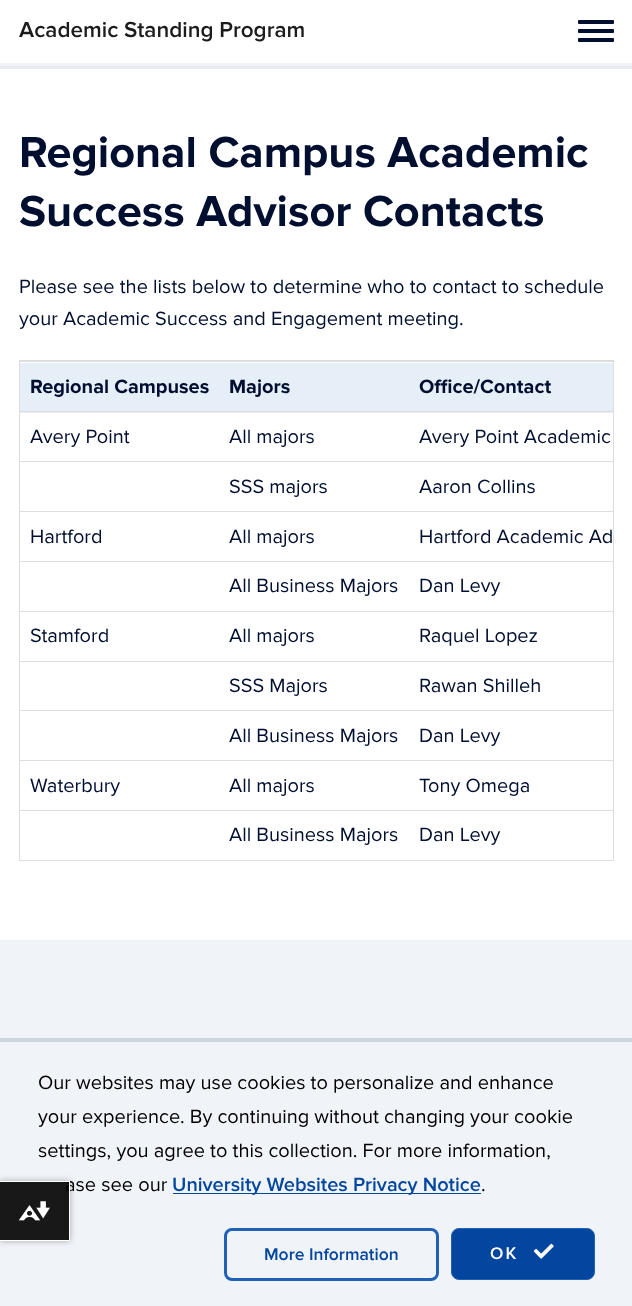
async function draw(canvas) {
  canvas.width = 632
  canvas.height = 1306
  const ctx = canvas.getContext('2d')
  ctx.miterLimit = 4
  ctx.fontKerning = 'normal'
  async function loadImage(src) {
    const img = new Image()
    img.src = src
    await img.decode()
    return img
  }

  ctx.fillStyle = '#fff'
  ctx.fillRect(0, 0, 632, 1306)
  ctx.font = '600 22.5px Proxima Nova'
  ctx.fillStyle = '#1c1c1c'
  ctx.fillText('Academic Standing Program', 19, 37)
  ctx.fillStyle = '#000e2f'
  ctx.beginPath()
  ctx.roundRect(578, 20, 36, 4, 1)
  ctx.fill()
  ctx.beginPath()
  ctx.roundRect(578, 29, 36, 4, 1)
  ctx.fill()
  ctx.beginPath()
  ctx.roundRect(578, 38, 36, 4, 1)
  ctx.fill()
  ctx.fillStyle = '#f1f3f8'
  ctx.fillRect(0, 63, 632, 3)
  ctx.fillStyle = '#e7eaf2'
  ctx.fillRect(0, 66, 632, 3)
  ctx.font = 'bold 45px Proxima Nova'
  ctx.fillStyle = '#000e2f'
  ctx.fillText('Regional Campus Academic', 19, 167)
  ctx.fillText('Success Advisor Contacts', 19, 226)
  ctx.font = '20px Proxima Nova'
  ctx.fillText('Please see the lists below to determine who to contact to schedule', 19, 293)
  ctx.fillText('your Academic Success and Engagement meeting.', 19, 325)
  ctx.strokeStyle = '#ddd'
  ctx.strokeRect(19.5, 360.5, 594, 500)
  ctx.fillStyle = '#e6eef7'
  ctx.fillRect(20, 363, 593, 50)
  ctx.font = 'bold 20px Proxima Nova'
  ctx.fillStyle = '#000e2f'
  ctx.fillText('Regional Campuses', 30, 393)
  ctx.fillText('Majors', 229, 393)
  ctx.fillStyle = '#ddd'
  ctx.fillRect(20, 361, 593, 1)
  ctx.fillStyle = '#000e2f'
  ctx.fillText('Office/Contact', 419, 393)
  ctx.font = '20px Proxima Nova'
  ctx.fillText('Avery Point', 30, 443)
  ctx.fillText('All majors', 229, 443)
  ctx.fillStyle = '#ddd'
  ctx.fillRect(20, 411, 593, 1)
  ctx.fillStyle = '#000e2f'
  ctx.fillText('Avery Point Academic', 419, 443)
  ctx.fillText('SSS majors', 229, 493)
  ctx.fillStyle = '#ddd'
  ctx.fillRect(20, 461, 593, 1)
  ctx.fillStyle = '#000e2f'
  ctx.fillText('Aaron Collins', 419, 493)
  ctx.fillText('Hartford', 30, 543)
  ctx.fillText('All majors', 229, 543)
  ctx.fillStyle = '#ddd'
  ctx.fillRect(20, 511, 593, 1)
  ctx.fillStyle = '#000e2f'
  ctx.fillText('Hartford Academic Ad', 419, 543)
  ctx.fillText('All Business Majors', 229, 592)
  ctx.fillStyle = '#ddd'
  ctx.fillRect(20, 561, 593, 1)
  ctx.fillStyle = '#000e2f'
  ctx.fillText('Dan Levy', 419, 592)
  ctx.fillText('Stamford', 30, 642)
  ctx.fillText('All majors', 229, 642)
  ctx.fillStyle = '#ddd'
  ctx.fillRect(20, 611, 593, 1)
  ctx.fillStyle = '#000e2f'
  ctx.fillText('Raquel Lopez', 419, 642)
  ctx.fillText('SSS Majors', 229, 692)
  ctx.fillStyle = '#ddd'
  ctx.fillRect(20, 661, 593, 1)
  ctx.fillStyle = '#000e2f'
  ctx.fillText('Rawan Shilleh', 419, 692)
  ctx.fillText('All Business Majors', 229, 742)
  ctx.fillStyle = '#ddd'
  ctx.fillRect(20, 710, 593, 1)
  ctx.fillStyle = '#000e2f'
  ctx.fillText('Dan Levy', 419, 742)
  ctx.fillText('Waterbury', 30, 792)
  ctx.fillText('All majors', 229, 792)
  ctx.fillStyle = '#ddd'
  ctx.fillRect(20, 760, 593, 1)
  ctx.fillStyle = '#000e2f'
  ctx.fillText('Tony Omega', 419, 792)
  ctx.fillText('All Business Majors', 229, 841)
  ctx.fillStyle = '#ddd'
  ctx.fillRect(20, 810, 593, 1)
  ctx.fillStyle = '#000e2f'
  ctx.fillText('Dan Levy', 419, 841)
  ctx.fillStyle = '#f0f3f7'
  ctx.fillRect(0, 941, 632, 97)
  ctx.fillStyle = '#edeff2'
  ctx.fillRect(0, 940, 632, 1)
  ctx.fillStyle = '#f0f3f7'
  ctx.fillRect(0, 1042, 632, 264)
  ctx.fillStyle = '#cfd5dd'
  ctx.fillRect(0, 1038, 632, 4)
  ctx.fillStyle = '#000'
  ctx.fillText('Our websites may use cookies to personalize and enhance', 38, 1089)
  ctx.fillText('your experience. By continuing without changing your cookie', 38, 1123)
  ctx.fillText('settings, you agree to this collection. For more information,', 38, 1157)
  ctx.fillText('ase see our', 65, 1191)
  ctx.fillStyle = '#03469f'
  ctx.fillRect(173, 1193, 308, 1)
  ctx.font = '600 20px Proxima Nova'
  ctx.fillText('University Websites Privacy Notice', 172, 1191)
  ctx.font = '20px Proxima Nova'
  ctx.fillStyle = '#000'
  ctx.fillText('.', 481, 1191)
  ctx.beginPath()
  ctx.roundRect(225.5, 1229.5, 212, 50, 6.5)
  ctx.strokeStyle = '#2061b6'
  ctx.lineWidth = 3
  ctx.stroke()
  ctx.font = '600 17.5px Proxima Nova'
  ctx.fillStyle = '#03469f'
  ctx.fillText('More Information', 264, 1260)
  ctx.beginPath()
  ctx.roundRect(451.5, 1228.5, 143, 51, 7.5)
  ctx.fill()
  ctx.lineWidth = 1
  ctx.stroke()
  ctx.letterSpacing = '2px'
  ctx.fillStyle = '#fff'
  ctx.fillText('OK', 490, 1259)
  ctx.drawImage(await loadImage('image0.png'), 533, 1243, 21, 16)
  ctx.save()
  ctx.beginPath()
  ctx.moveTo(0, 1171)
  ctx.lineTo(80, 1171)
  ctx.lineTo(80, 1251)
  ctx.lineTo(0, 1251)
  ctx.closePath()
  ctx.moveTo(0, 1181)
  ctx.lineTo(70, 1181)
  ctx.lineTo(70, 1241)
  ctx.lineTo(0, 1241)
  ctx.closePath()
  ctx.clip('evenodd')
  ctx.fillStyle = '#0000004d'
  ctx.filter = 'blur(3px)'
  ctx.beginPath()
  ctx.rect(0, 1181, 70, 60)
  ctx.fill()
  ctx.filter = 'none'
  ctx.restore()
  ctx.fillStyle = '#000000e6'
  ctx.fillRect(0, 1182, 69, 58)
  ctx.fillStyle = '#fff'
  ctx.fillRect(0, 1181, 70, 1)
  ctx.fillRect(69, 1181, 1, 60)
  ctx.fillRect(0, 1240, 70, 1)
  ctx.drawImage(await loadImage('image1.png'), 19, 1201, 31, 20)
}

draw(document.querySelector('canvas'))
